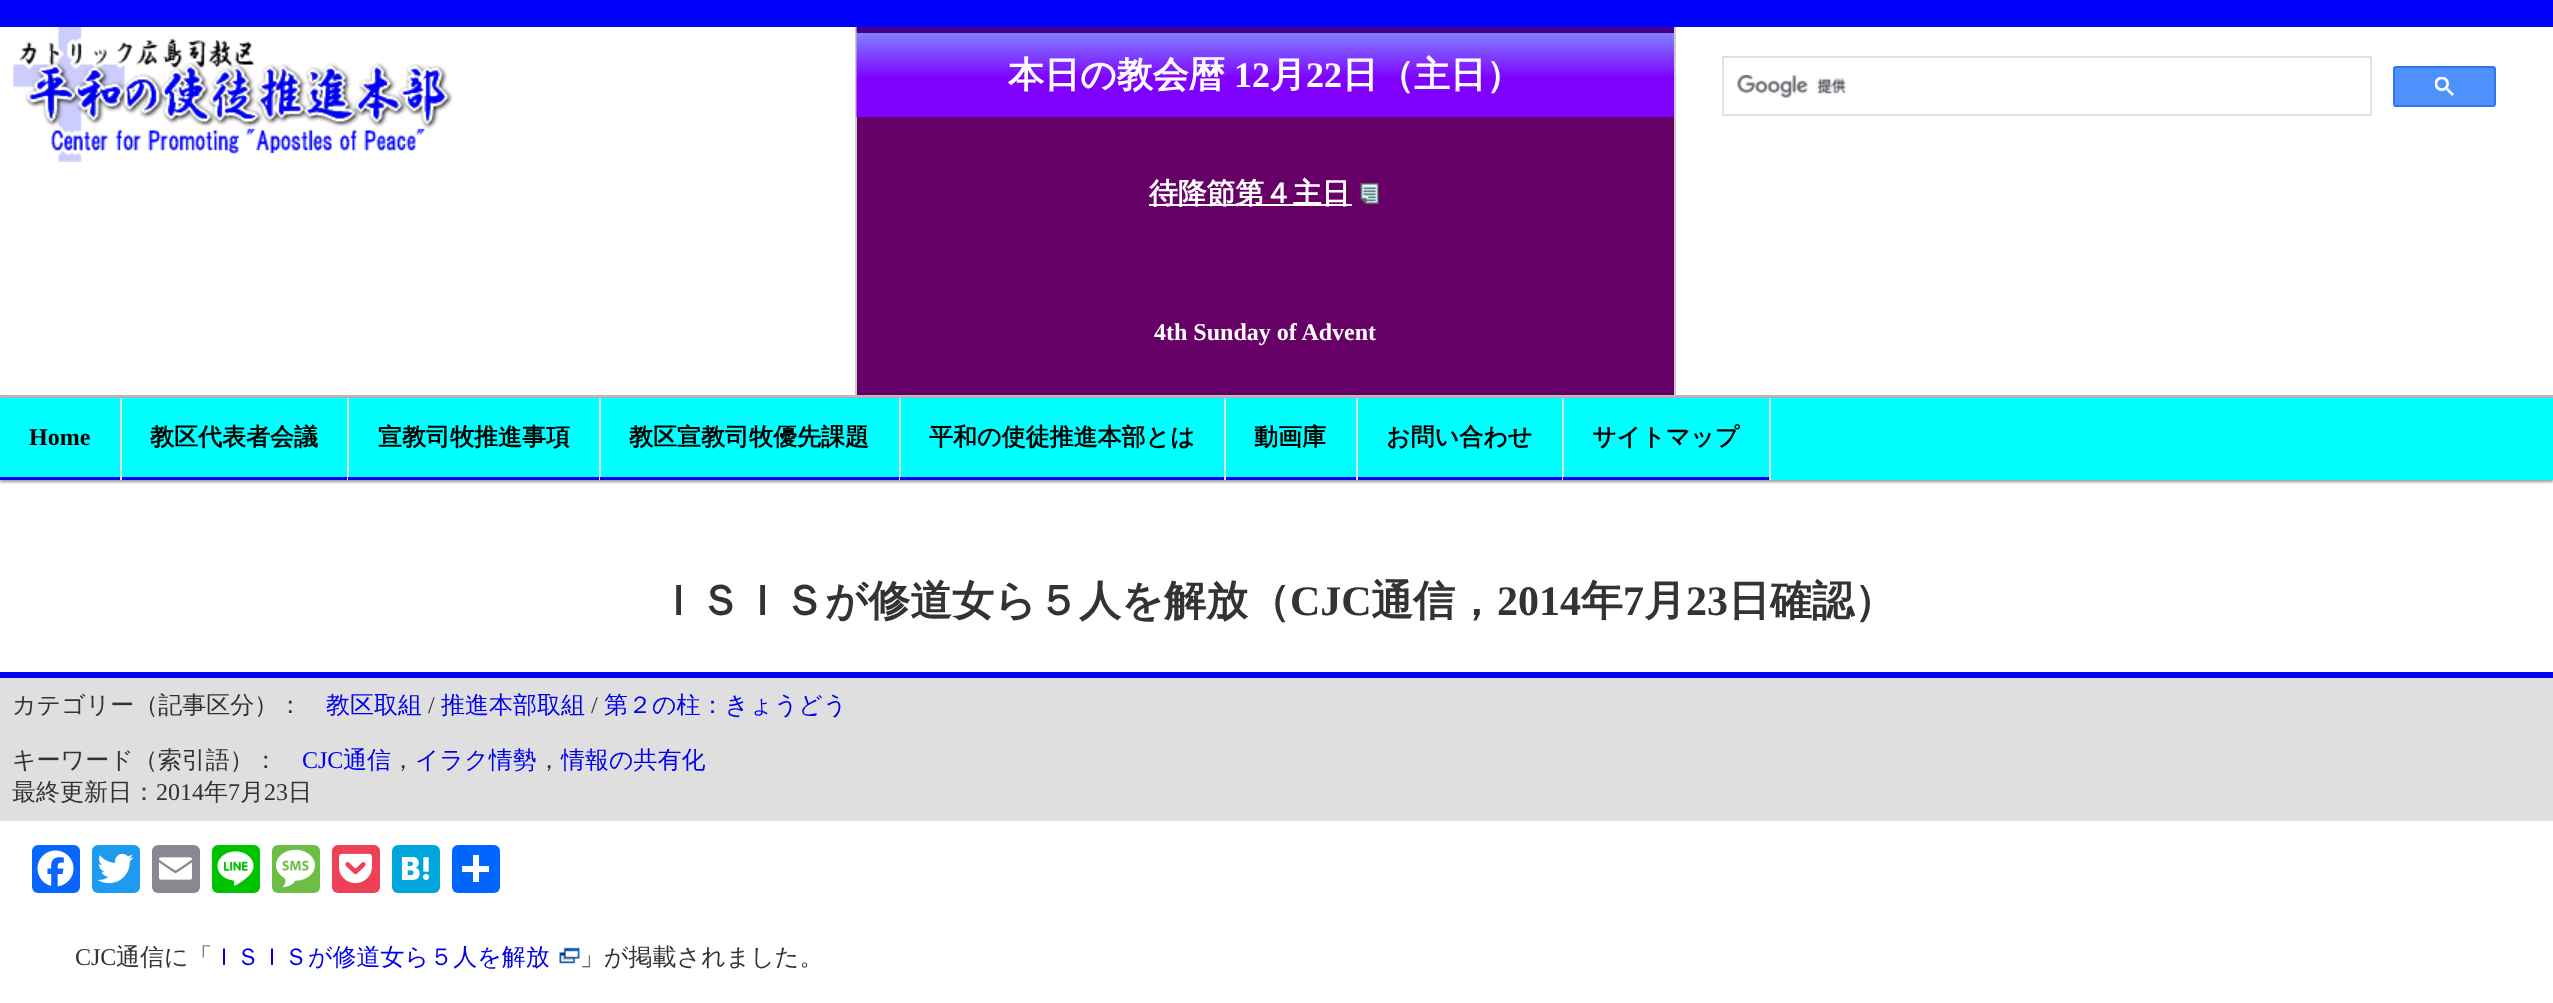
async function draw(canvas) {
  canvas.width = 2553
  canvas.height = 1003
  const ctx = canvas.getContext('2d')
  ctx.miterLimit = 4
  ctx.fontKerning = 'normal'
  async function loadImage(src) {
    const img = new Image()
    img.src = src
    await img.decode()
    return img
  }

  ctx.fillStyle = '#00f'
  ctx.fillRect(0, 0, 2553, 1003)
  ctx.fillStyle = '#fff'
  ctx.fillRect(0, 27, 2553, 368)
  ctx.drawImage(await loadImage('image0.png'), 13, 27, 440, 135)
  ctx.fillStyle = '#ccc'
  ctx.fillRect(1674, 27, 2, 368)
  ctx.fillRect(855, 27, 2, 368)
  ctx.drawImage(await loadImage('image1.png'), 856, 27, 818, 90)
  ctx.fillStyle = '#408'
  ctx.fillRect(857, 27, 817, 6)
  ctx.font = 'bold 36px WenQuanYi Zen Hei'
  ctx.fillStyle = '#fff'
  ctx.fillText('本日の教会暦', 1008, 87)
  ctx.font = 'bold 36px Liberation Serif'
  ctx.fillText('12', 1234, 87)
  ctx.font = 'bold 36px WenQuanYi Zen Hei'
  ctx.fillText('月', 1270, 87)
  ctx.font = 'bold 36px Liberation Serif'
  ctx.fillText('22', 1306, 87)
  ctx.font = 'bold 36px WenQuanYi Zen Hei'
  ctx.fillText('日（主日）', 1342, 87)
  ctx.fillStyle = '#606'
  ctx.fillRect(857, 117, 817, 278)
  ctx.fillStyle = '#fff'
  ctx.fillRect(1149, 204, 203, 2)
  ctx.font = 'bold 28.75px WenQuanYi Zen Hei'
  ctx.fillText('待降節第４主日', 1149, 203)
  ctx.drawImage(await loadImage('image2.png'), 1360, 182, 19, 23)
  ctx.font = 'bold 24px Liberation Serif'
  ctx.fillText('4th Sunday of Advent', 1154, 340)
  ctx.strokeStyle = '#dfe1e5'
  ctx.lineWidth = 2
  ctx.strokeRect(1723, 57, 648, 58)
  ctx.drawImage(await loadImage('image3.png'), 1737, 75, 109, 23)
  ctx.fillStyle = '#4d90fe'
  ctx.beginPath()
  ctx.roundRect(2394, 67, 101, 39, 2)
  ctx.fill()
  ctx.strokeStyle = '#3079ed'
  ctx.stroke()
  ctx.drawImage(await loadImage('image4.png'), 2435, 77, 19, 19)
  ctx.fillStyle = '#fff'
  ctx.fillRect(0, 480, 2553, 523)
  ctx.fillStyle = '#bbb'
  ctx.fillRect(0, 395, 2553, 3)
  ctx.fillStyle = '#00000066'
  ctx.filter = 'blur(1.5px)'
  ctx.beginPath()
  ctx.rect(0, 399, 2553, 83)
  ctx.fill()
  ctx.filter = 'none'
  ctx.fillStyle = '#0ff'
  ctx.fillRect(0, 398, 2553, 82)
  ctx.fillStyle = '#ddd'
  ctx.fillRect(120, 398, 2, 82)
  ctx.fillStyle = '#00f'
  ctx.fillRect(0, 477, 120, 3)
  ctx.fillStyle = '#000'
  ctx.fillText('Home', 29, 445)
  ctx.fillStyle = '#ddd'
  ctx.fillRect(347, 398, 2, 82)
  ctx.fillStyle = '#00f'
  ctx.fillRect(122, 477, 225, 3)
  ctx.font = 'bold 24px WenQuanYi Zen Hei'
  ctx.fillStyle = '#000'
  ctx.fillText('教区代表者会議', 150, 445)
  ctx.fillStyle = '#ddd'
  ctx.fillRect(599, 398, 2, 82)
  ctx.fillStyle = '#00f'
  ctx.fillRect(348, 477, 251, 3)
  ctx.fillStyle = '#000'
  ctx.fillText('宣教司牧推進事項', 378, 445)
  ctx.fillStyle = '#ddd'
  ctx.fillRect(899, 398, 2, 82)
  ctx.fillStyle = '#00f'
  ctx.fillRect(600, 477, 299, 3)
  ctx.fillStyle = '#000'
  ctx.fillText('教区宣教司牧優先課題', 629, 445)
  ctx.fillStyle = '#ddd'
  ctx.fillRect(1224, 398, 2, 82)
  ctx.fillStyle = '#00f'
  ctx.fillRect(900, 477, 324, 3)
  ctx.fillStyle = '#000'
  ctx.fillText('平和の使徒推進本部とは', 929, 445)
  ctx.fillStyle = '#ddd'
  ctx.fillRect(1356, 398, 2, 82)
  ctx.fillStyle = '#00f'
  ctx.fillRect(1226, 477, 130, 3)
  ctx.fillStyle = '#000'
  ctx.fillText('動画庫', 1254, 445)
  ctx.fillStyle = '#ddd'
  ctx.fillRect(1562, 398, 2, 82)
  ctx.fillStyle = '#00f'
  ctx.fillRect(1358, 477, 204, 3)
  ctx.fillStyle = '#000'
  ctx.fillText('お問い合わせ', 1386, 445)
  ctx.fillStyle = '#ddd'
  ctx.fillRect(1769, 398, 2, 82)
  ctx.fillStyle = '#00f'
  ctx.fillRect(1563, 477, 206, 3)
  ctx.fillStyle = '#000'
  ctx.fillText('サイトマップ', 1592, 445)
  ctx.fillStyle = '#00f'
  ctx.fillRect(0, 672, 2553, 6)
  ctx.font = 'bold 42px WenQuanYi Zen Hei'
  ctx.fillStyle = '#333'
  ctx.fillText('ＩＳＩＳが修道女ら５人を解放（', 657, 615)
  ctx.font = 'bold 42px Liberation Serif'
  ctx.fillText('CJC', 1290, 615)
  ctx.font = 'bold 42px WenQuanYi Zen Hei'
  ctx.fillText('通信，', 1371, 615)
  ctx.font = 'bold 42px Liberation Serif'
  ctx.fillText('2014', 1497, 615)
  ctx.font = 'bold 42px WenQuanYi Zen Hei'
  ctx.fillText('年', 1581, 615)
  ctx.font = 'bold 42px Liberation Serif'
  ctx.fillText('7', 1623, 615)
  ctx.font = 'bold 42px WenQuanYi Zen Hei'
  ctx.fillText('月', 1644, 615)
  ctx.font = 'bold 42px Liberation Serif'
  ctx.fillText('23', 1686, 615)
  ctx.font = 'bold 42px WenQuanYi Zen Hei'
  ctx.fillText('日確認）', 1728, 615)
  ctx.fillStyle = '#dfdfdf'
  ctx.fillRect(0, 678, 2553, 143)
  ctx.font = '500 24px WenQuanYi Zen Hei'
  ctx.fillStyle = '#333'
  ctx.fillText('カテゴリー（記事区分）：', 12, 713)
  ctx.fillStyle = '#00e'
  ctx.fillText('教区取組', 326, 713)
  ctx.font = '24px Liberation Serif'
  ctx.fillStyle = '#333'
  ctx.fillText('/', 428, 713)
  ctx.font = '500 24px WenQuanYi Zen Hei'
  ctx.fillStyle = '#00e'
  ctx.fillText('推進本部取組', 441, 713)
  ctx.font = '24px Liberation Serif'
  ctx.fillStyle = '#333'
  ctx.fillText('/', 591, 713)
  ctx.font = '500 24px WenQuanYi Zen Hei'
  ctx.fillStyle = '#00e'
  ctx.fillText('第２の柱：きょうどう', 604, 713)
  ctx.fillStyle = '#333'
  ctx.fillText('キーワード（索引語）：', 12, 768)
  ctx.font = '24px Liberation Serif'
  ctx.fillStyle = '#00e'
  ctx.fillText('CJC', 302, 768)
  ctx.font = '500 24px WenQuanYi Zen Hei'
  ctx.fillText('通信', 343, 768)
  ctx.fillStyle = '#333'
  ctx.fillText('，', 391, 768)
  ctx.fillStyle = '#00e'
  ctx.fillText('イラク情勢', 415, 768)
  ctx.fillStyle = '#333'
  ctx.fillText('，', 537, 768)
  ctx.fillStyle = '#00e'
  ctx.fillText('情報の共有化', 561, 768)
  ctx.fillStyle = '#333'
  ctx.fillText('最終更新日：', 12, 800)
  ctx.font = '24px Liberation Serif'
  ctx.fillText('2014', 156, 800)
  ctx.font = '500 24px WenQuanYi Zen Hei'
  ctx.fillText('年', 204, 800)
  ctx.font = '24px Liberation Serif'
  ctx.fillText('7', 228, 800)
  ctx.font = '500 24px WenQuanYi Zen Hei'
  ctx.fillText('月', 240, 800)
  ctx.font = '24px Liberation Serif'
  ctx.fillText('23', 264, 800)
  ctx.font = '500 24px WenQuanYi Zen Hei'
  ctx.fillText('日', 288, 800)
  ctx.fillStyle = '#0866ff'
  ctx.beginPath()
  ctx.roundRect(32, 845, 48, 48, 6)
  ctx.fill()
  ctx.drawImage(await loadImage('image5.png'), 37, 850, 37, 37)
  ctx.fillStyle = '#1d9bf0'
  ctx.beginPath()
  ctx.roundRect(92, 845, 48, 48, 6)
  ctx.fill()
  ctx.drawImage(await loadImage('image6.png'), 97, 853, 37, 31)
  ctx.fillStyle = '#888990'
  ctx.beginPath()
  ctx.roundRect(152, 845, 48, 48, 6)
  ctx.fill()
  ctx.drawImage(await loadImage('image7.png'), 159, 857, 33, 23)
  ctx.fillStyle = '#00c300'
  ctx.beginPath()
  ctx.roundRect(212, 845, 48, 48, 6)
  ctx.fill()
  ctx.drawImage(await loadImage('image8.png'), 217, 851, 37, 35)
  ctx.fillStyle = '#6cbe45'
  ctx.beginPath()
  ctx.roundRect(272, 845, 48, 48, 6)
  ctx.fill()
  ctx.drawImage(await loadImage('image9.png'), 276, 849, 39, 39)
  ctx.fillStyle = '#ee4056'
  ctx.beginPath()
  ctx.roundRect(332, 845, 48, 48, 6)
  ctx.fill()
  ctx.drawImage(await loadImage('image10.png'), 339, 853, 33, 31)
  ctx.fillStyle = '#00a6db'
  ctx.beginPath()
  ctx.roundRect(392, 845, 48, 48, 6)
  ctx.fill()
  ctx.drawImage(await loadImage('image11.png'), 401, 857, 28, 23)
  ctx.fillStyle = '#0166ff'
  ctx.beginPath()
  ctx.roundRect(452, 845, 48, 48, 6)
  ctx.fill()
  ctx.fillStyle = '#fff'
  ctx.fillRect(473, 855, 6, 27)
  ctx.fillRect(462, 866, 27, 6)
  ctx.font = '24px Liberation Serif'
  ctx.fillStyle = '#333'
  ctx.fillText('CJC', 75, 965)
  ctx.font = '500 24px WenQuanYi Zen Hei'
  ctx.fillText('通信に「', 116, 965)
  ctx.fillStyle = '#00e'
  ctx.fillText('ＩＳＩＳが修道女ら５人を解放', 212, 965)
  ctx.drawImage(await loadImage('image12.png'), 559, 947, 21, 17)
  ctx.fillStyle = '#333'
  ctx.fillText('」が掲載されました。', 580, 965)
}

draw(document.querySelector('canvas'))
